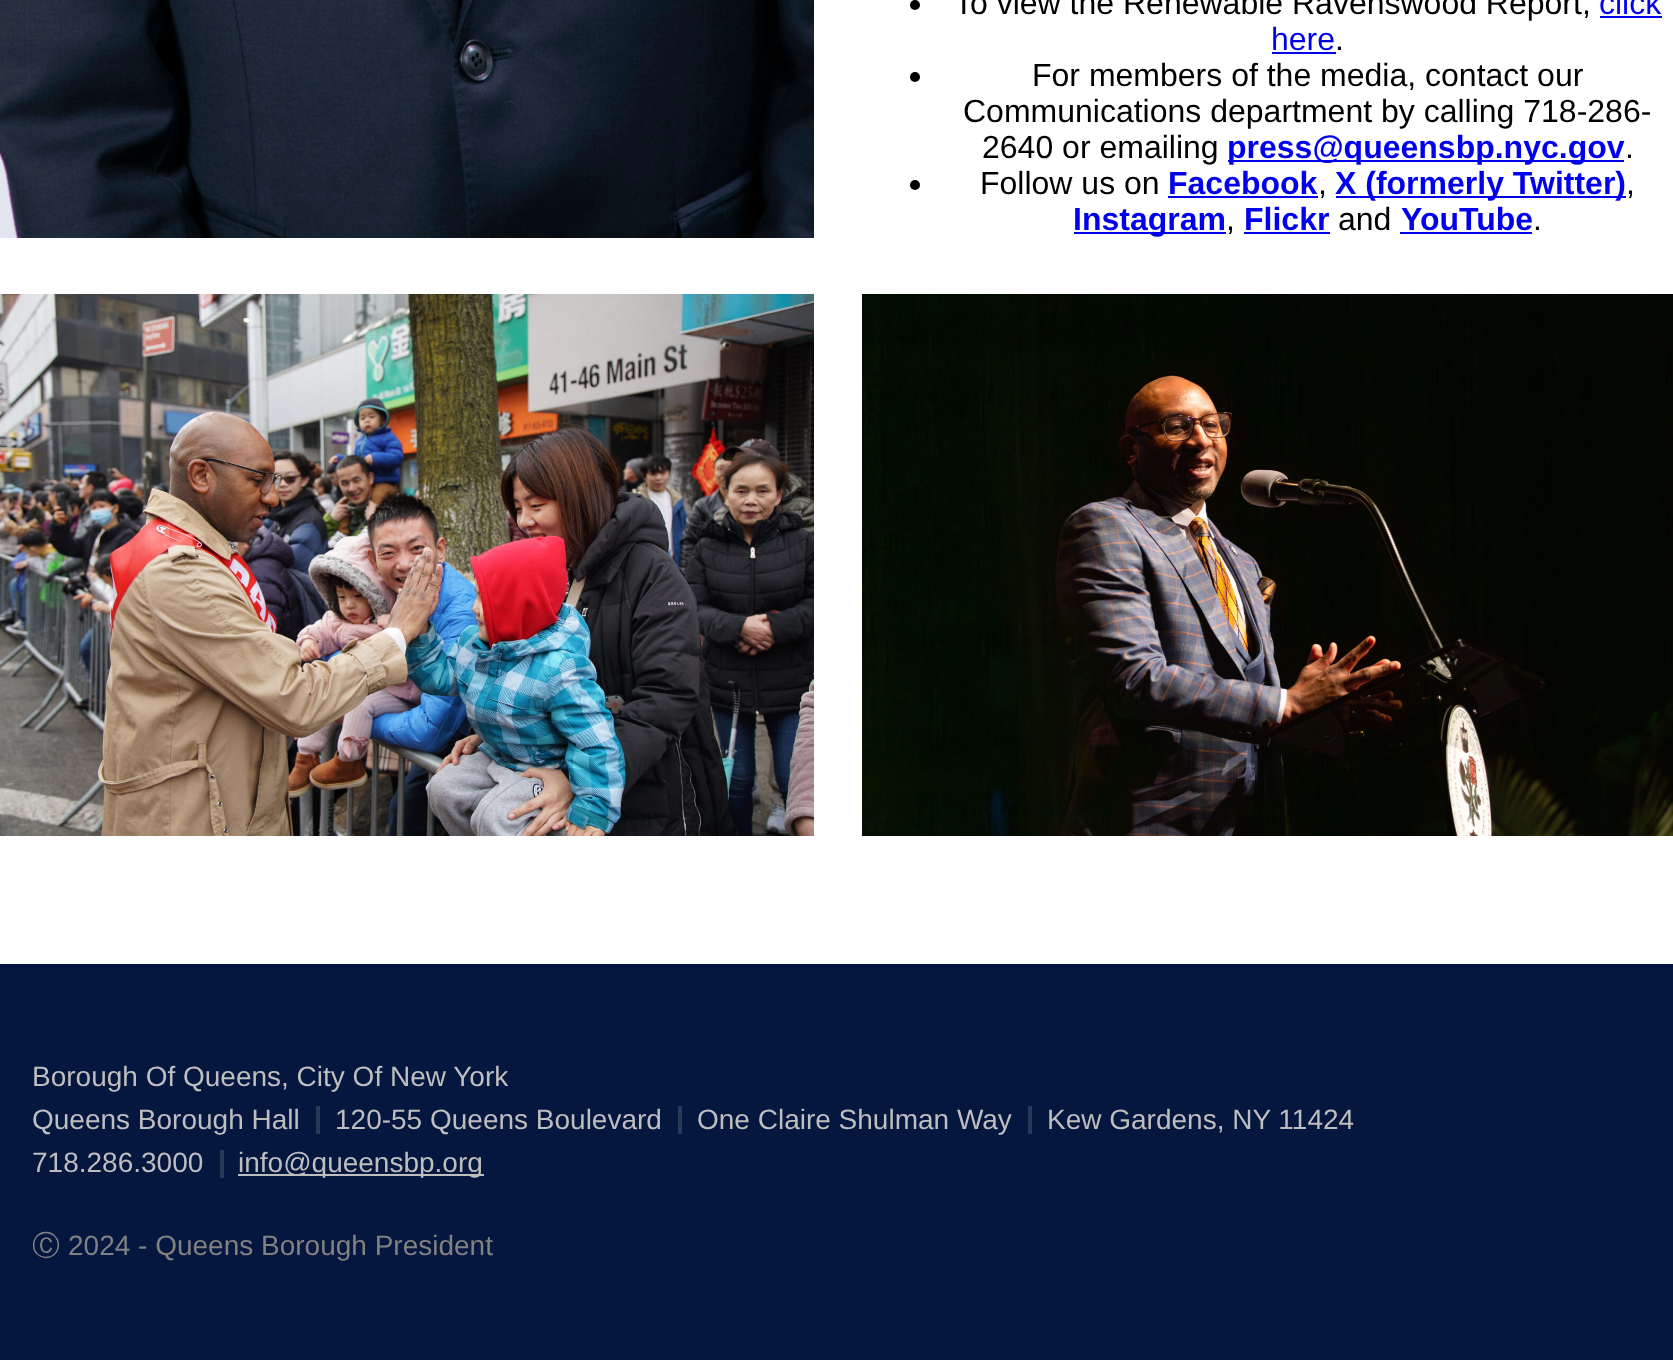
async function draw(canvas) {
  canvas.width = 1673
  canvas.height = 1360
  const ctx = canvas.getContext('2d')
  ctx.miterLimit = 4
  ctx.fontKerning = 'normal'
  async function loadImage(src) {
    const img = new Image()
    img.src = src
    await img.decode()
    return img
  }

  ctx.fillStyle = '#05163f'
  ctx.fillRect(0, 0, 1673, 1360)
  ctx.fillStyle = '#fff'
  ctx.fillRect(0, 0, 1673, 964)
  ctx.drawImage(await loadImage('image0.png'), 0, 0, 814, 238)
  ctx.fillStyle = '#000'
  ctx.beginPath()
  ctx.arc(915, 5, 5, 0, 2 * Math.PI)
  ctx.fill()
  ctx.font = '32px Liberation Sans'
  ctx.fillText('To view the Renewable Ravenswood Report,', 954, 14)
  ctx.fillStyle = '#00e'
  ctx.fillText('click', 1599, 14)
  ctx.fillRect(1600, 16, 62, 2)
  ctx.fillText('here', 1271, 50)
  ctx.fillRect(1272, 52, 64, 2)
  ctx.fillStyle = '#000'
  ctx.fillText('.', 1335, 50)
  ctx.beginPath()
  ctx.arc(915, 77, 5, 0, 2 * Math.PI)
  ctx.fill()
  ctx.fillText('For members of the media, contact our', 1032, 86)
  ctx.fillText('Communications department by calling 718-286-', 963, 122)
  ctx.fillText('2640 or emailing', 982, 158)
  ctx.fillStyle = '#00e'
  ctx.fillRect(1228, 160, 396, 2)
  ctx.font = 'bold 32px Liberation Sans'
  ctx.fillText('press@queensbp.nyc.gov', 1227, 158)
  ctx.font = '32px Liberation Sans'
  ctx.fillStyle = '#000'
  ctx.fillText('.', 1625, 158)
  ctx.beginPath()
  ctx.arc(915, 185, 5, 0, 2 * Math.PI)
  ctx.fill()
  ctx.fillText('Follow us on', 980, 194)
  ctx.font = 'bold 32px Liberation Sans'
  ctx.fillStyle = '#00e'
  ctx.fillText('Facebook', 1168, 194)
  ctx.fillRect(1168, 196, 150, 2)
  ctx.fillRect(1336, 196, 290, 2)
  ctx.fillText('X (formerly Twitter)', 1335, 194)
  ctx.font = '32px Liberation Sans'
  ctx.fillStyle = '#000'
  ctx.fillText(',', 1318, 194)
  ctx.fillText(',', 1626, 194)
  ctx.fillStyle = '#00e'
  ctx.fillRect(1074, 232, 152, 2)
  ctx.font = 'bold 32px Liberation Sans'
  ctx.fillText('Instagram', 1073, 230)
  ctx.font = '32px Liberation Sans'
  ctx.fillStyle = '#000'
  ctx.fillText(',', 1226, 230)
  ctx.font = 'bold 32px Liberation Sans'
  ctx.fillStyle = '#00e'
  ctx.fillText('Flickr', 1244, 230)
  ctx.fillRect(1244, 232, 86, 2)
  ctx.font = '32px Liberation Sans'
  ctx.fillStyle = '#000'
  ctx.fillText('and', 1338, 230)
  ctx.font = 'bold 32px Liberation Sans'
  ctx.fillStyle = '#00e'
  ctx.fillText('YouTube', 1401, 230)
  ctx.fillRect(1400, 232, 132, 2)
  ctx.font = '32px Liberation Sans'
  ctx.fillStyle = '#000'
  ctx.fillText('.', 1533, 230)
  ctx.drawImage(await loadImage('image1.png'), 0, 294, 814, 542)
  ctx.drawImage(await loadImage('image2.png'), 862, 294, 811, 542)
  ctx.font = '28px Liberation Sans'
  ctx.fillStyle = '#bebebe'
  ctx.fillText('Borough Of Queens, City Of New York', 32, 1086)
  ctx.fillText('Queens Borough Hall', 32, 1129)
  ctx.fillStyle = '#2a3858'
  ctx.fillRect(316, 1106, 4, 28)
  ctx.fillStyle = '#bebebe'
  ctx.fillText('120-55 Queens Boulevard', 335, 1129)
  ctx.fillStyle = '#2a3858'
  ctx.fillRect(678, 1106, 4, 28)
  ctx.fillStyle = '#bebebe'
  ctx.fillText('One Claire Shulman Way', 697, 1129)
  ctx.fillStyle = '#2a3858'
  ctx.fillRect(1028, 1106, 4, 28)
  ctx.fillStyle = '#bebebe'
  ctx.fillText('Kew Gardens, NY 11424', 1047, 1129)
  ctx.fillText('718.286.3000', 32, 1172)
  ctx.fillStyle = '#2a3858'
  ctx.fillRect(220, 1150, 4, 28)
  ctx.fillStyle = '#bebebe'
  ctx.fillRect(238, 1174, 246, 2)
  ctx.fillText('info@queensbp.org', 238, 1172)
  ctx.font = '500 28px WenQuanYi Zen Hei'
  ctx.fillStyle = '#818181'
  ctx.fillText('Ⓒ', 32, 1255)
  ctx.font = '28px Liberation Sans'
  ctx.fillText('2024 - Queens Borough President', 68, 1255)
}

draw(document.querySelector('canvas'))
